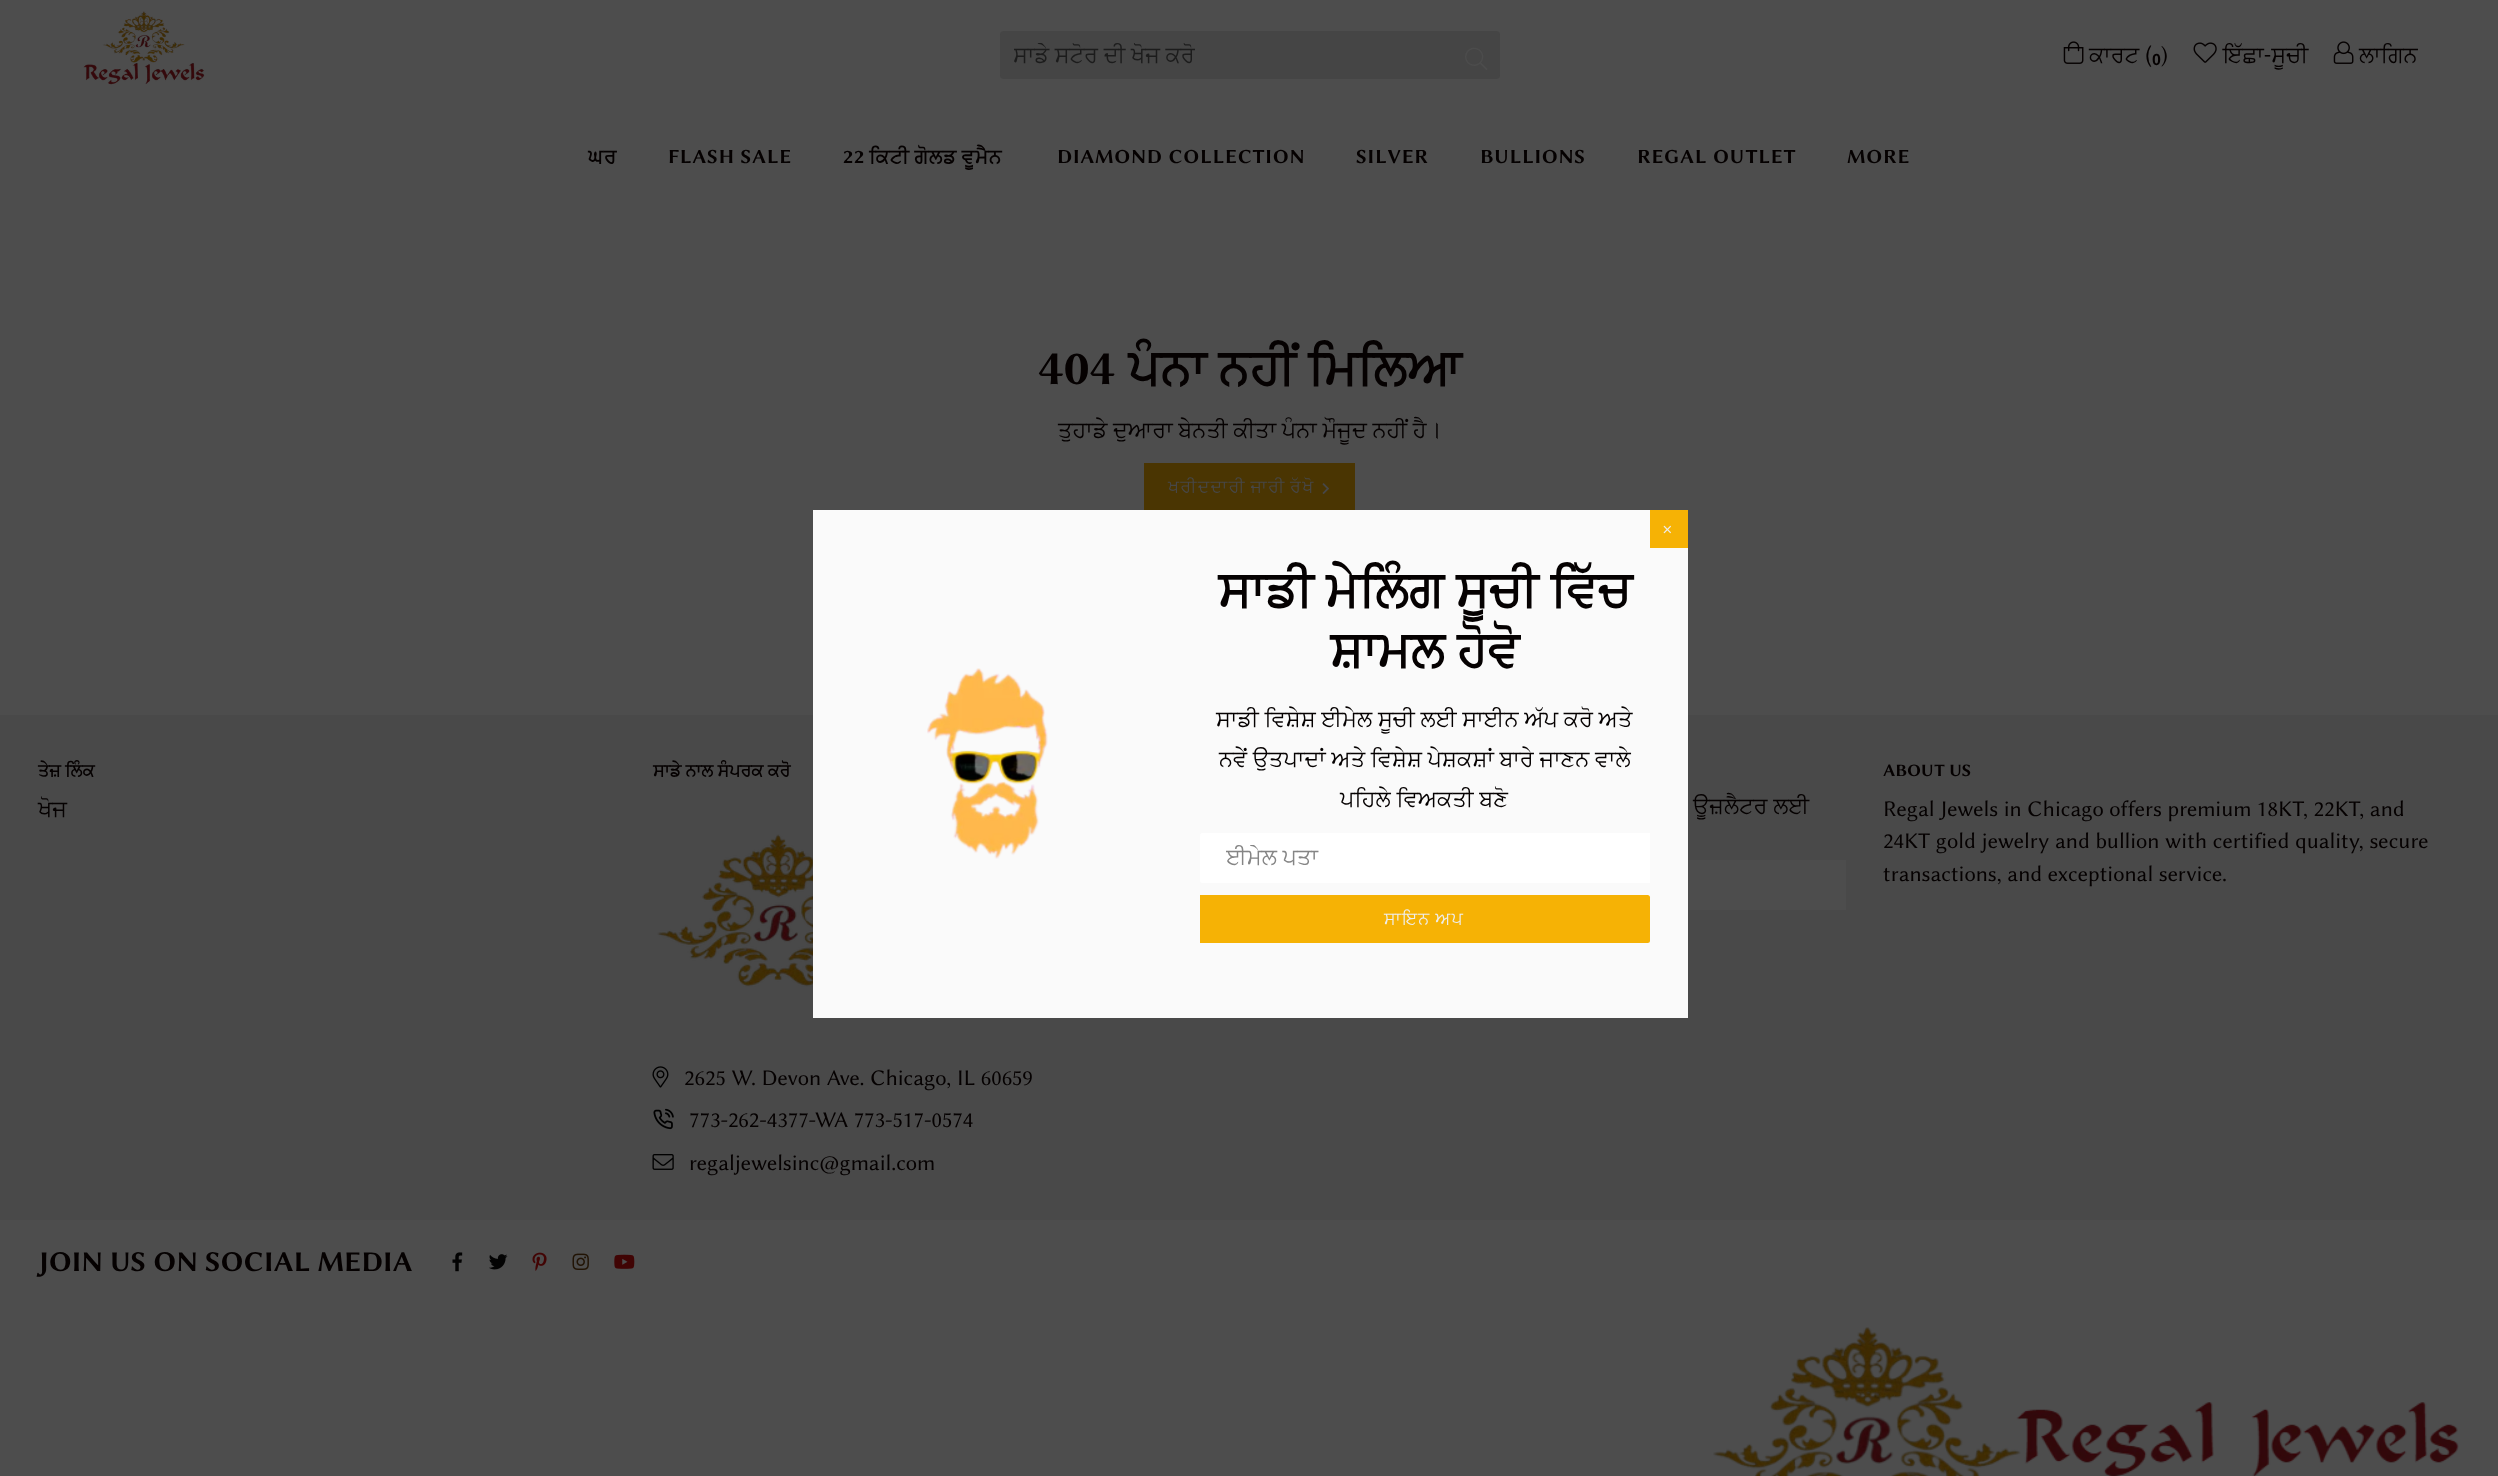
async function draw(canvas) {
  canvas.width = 2498
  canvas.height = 1476
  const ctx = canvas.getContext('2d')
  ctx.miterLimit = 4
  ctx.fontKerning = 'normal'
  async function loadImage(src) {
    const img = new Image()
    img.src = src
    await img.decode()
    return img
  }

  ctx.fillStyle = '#4d4d4d'
  ctx.fillRect(0, 0, 2498, 1476)
  ctx.drawImage(await loadImage('image0.png'), 83, 11, 122, 74)
  ctx.fillStyle = '#454545'
  ctx.beginPath()
  ctx.roundRect(1000, 31, 500, 48, 4)
  ctx.fill()
  ctx.save()
  ctx.beginPath()
  ctx.rect(1014, 43, 427, 26)
  ctx.clip()
  ctx.font = '22.5px FreeSans'
  ctx.fillStyle = '#1c1c1c'
  ctx.fillText('ਸਾਡੇ ਸਟੋਰ ਦੀ ਖੋਜ ਕਰੋ', 1013, 62)
  ctx.restore()
  ctx.drawImage(await loadImage('image1.png'), 1465, 47, 23, 23)
  ctx.drawImage(await loadImage('image2.png'), 2063, 41, 21, 23)
  ctx.font = '22.5px FreeSans'
  ctx.fillStyle = '#050101'
  ctx.fillText('ਕਾਰਟ (', 2089, 62)
  ctx.font = 'bold 16px Liberation Sans'
  ctx.fillText('0', 2152, 65)
  ctx.font = '22.5px Libertinus Sans'
  ctx.fillText(')', 2161, 62)
  ctx.drawImage(await loadImage('image3.png'), 2193, 42, 24, 21)
  ctx.font = '22.5px FreeSans'
  ctx.fillText('ਇੱਛਾ-ਸੂਚੀ', 2223, 62)
  ctx.drawImage(await loadImage('image4.png'), 2333, 41, 21, 23)
  ctx.fillText('ਲਾਗਿਨ', 2359, 62)
  ctx.letterSpacing = '0.75px'
  ctx.font = 'bold 20px FreeSans'
  ctx.fillText('ਘਰ', 588, 163)
  ctx.font = 'bold 20px Libertinus Sans'
  ctx.fillText('FLASH SALE', 668, 163)
  ctx.fillText('22', 843, 163)
  ctx.wordSpacing = '-1px'
  ctx.font = 'bold 20px FreeSans'
  ctx.fillText('ਕਿਟੀ ਗੋਲਡ ਵੂਮੈਨ', 869, 163)
  ctx.wordSpacing = '0px'
  ctx.font = 'bold 20px Libertinus Sans'
  ctx.fillText('DIAMOND COLLECTION', 1057, 163)
  ctx.fillText('SILVER', 1356, 163)
  ctx.fillText('BULLIONS', 1480, 163)
  ctx.fillText('REGAL OUTLET', 1637, 163)
  ctx.fillText('MORE', 1847, 163)
  ctx.letterSpacing = '0px'
  ctx.font = 'bold 50px Libertinus Sans'
  ctx.fillText('404', 1038, 384)
  ctx.font = 'bold 50px FreeSans'
  ctx.fillText('ਪੰਨਾ ਨਹੀਂ ਮਿਲਿਆ', 1128, 384)
  ctx.font = '22.5px FreeSans'
  ctx.fillText('ਤੁਹਾਡੇ ਦੁਆਰਾ ਬੇਨਤੀ ਕੀਤਾ ਪੰਨਾ ਮੌਜੂਦ ਨਹੀਂ ਹੈ।', 1058, 437)
  ctx.fillStyle = '#4a3502'
  ctx.fillRect(1144, 463, 211, 47)
  ctx.letterSpacing = '1.25px'
  ctx.wordSpacing = '-1px'
  ctx.font = '17.5px FreeSans'
  ctx.fillStyle = '#474747'
  ctx.fillText('ਖਰੀਦਦਾਰੀ ਜਾਰੀ ਰੱਖੋ', 1168, 492)
  ctx.drawImage(await loadImage('image5.png'), 1322, 483, 7, 11)
  ctx.fillStyle = '#494949'
  ctx.fillRect(0, 715, 2498, 505)
  ctx.letterSpacing = '0px'
  ctx.wordSpacing = '0px'
  ctx.font = 'bold 17.5px FreeSans'
  ctx.fillStyle = '#050101'
  ctx.fillText('ਤੇਜ਼ ਲਿੰਕ', 38, 776)
  ctx.font = '22.5px FreeSans'
  ctx.fillText('ਖੋਜ', 38, 816)
  ctx.font = 'bold 17.5px FreeSans'
  ctx.fillText('ਸਾਡੇ ਨਾਲ ਸੰਪਰਕ ਕਰੋ', 653, 776)
  ctx.drawImage(await loadImage('image6.png'), 657, 834, 156, 153)
  ctx.drawImage(await loadImage('image7.png'), 652, 1066, 17, 22)
  ctx.font = '22.5px Libertinus Sans'
  ctx.fillText('2625 W. Devon Ave. Chicago, IL 60659', 684, 1085)
  ctx.drawImage(await loadImage('image8.png'), 653, 1108, 21, 22)
  ctx.fillText('773-262-4377-WA 773-517-0574', 689, 1127)
  ctx.drawImage(await loadImage('image9.png'), 652, 1154, 22, 16)
  ctx.fillText('regaljewelsinc@gmail.com', 689, 1170)
  ctx.font = '22.5px FreeSans'
  ctx.fillText('ਊਜ਼ਲੈਟਰ ਲਈ', 1693, 813)
  ctx.fillStyle = '#4d4d4d'
  ctx.fillRect(1688, 860, 158, 50)
  ctx.font = 'bold 17.5px Libertinus Sans'
  ctx.fillStyle = '#050101'
  ctx.fillText('ABOUT US', 1883, 776)
  ctx.font = '22.5px Libertinus Sans'
  ctx.fillText('Regal Jewels in Chicago offers premium 18KT, 22KT, and', 1883, 816)
  ctx.fillText('24KT gold jewelry and bullion with certified quality, secure', 1883, 848)
  ctx.fillText('transactions, and exceptional service.', 1883, 881)
  ctx.font = 'bold 28.75px Libertinus Sans'
  ctx.fillText('JOIN US ON SOCIAL MEDIA', 38, 1271)
  ctx.drawImage(await loadImage('image10.png'), 452, 1252, 11, 20)
  ctx.drawImage(await loadImage('image11.png'), 489, 1254, 19, 16)
  ctx.drawImage(await loadImage('image12.png'), 532, 1252, 15, 19)
  ctx.drawImage(await loadImage('image13.png'), 572, 1253, 17, 17)
  ctx.drawImage(await loadImage('image14.png'), 614, 1254, 21, 15)
  ctx.drawImage(await loadImage('image15.png'), 1713, 1327, 746, 149)
  ctx.fillStyle = '#fafafa'
  ctx.fillRect(813, 510, 875, 508)
  ctx.fillStyle = '#f6b205'
  ctx.fillRect(1650, 510, 38, 38)
  ctx.letterSpacing = '1.25px'
  ctx.font = '24px Libertinus Sans'
  ctx.fillStyle = '#eee'
  ctx.fillText('×', 1661, 535)
  ctx.drawImage(await loadImage('image16.png'), 927, 668, 121, 191)
  ctx.letterSpacing = '0px'
  ctx.font = 'bold 50px FreeSans'
  ctx.fillStyle = '#050101'
  ctx.fillText('ਸਾਡੀ ਮੇਲਿੰਗ ਸੂਚੀ ਵਿੱਚ', 1218, 606)
  ctx.fillText('ਸ਼ਾਮਲ ਹੋਵੋ', 1330, 666)
  ctx.font = '22.5px FreeSans'
  ctx.fillText('ਸਾਡੀ ਵਿਸ਼ੇਸ਼ ਈਮੇਲ ਸੂਚੀ ਲਈ ਸਾਈਨ ਅੱਪ ਕਰੋ ਅਤੇ', 1216, 726)
  ctx.fillText('ਨਵੇਂ ਉਤਪਾਦਾਂ ਅਤੇ ਵਿਸ਼ੇਸ਼ ਪੇਸ਼ਕਸ਼ਾਂ ਬਾਰੇ ਜਾਣਨ ਵਾਲੇ', 1219, 766)
  ctx.fillText('ਪਹਿਲੇ ਵਿਅਕਤੀ ਬਣੋ', 1340, 806)
  ctx.fillStyle = '#fff'
  ctx.beginPath()
  ctx.roundRect(1200, 833, 450, 50, [2.5, 0, 0, 2.5])
  ctx.fill()
  ctx.save()
  ctx.beginPath()
  ctx.rect(1226, 845, 398, 26)
  ctx.clip()
  ctx.fillStyle = '#858585'
  ctx.fillText('ਈਮੇਲ ਪਤਾ', 1226, 864)
  ctx.restore()
  ctx.fillStyle = '#f6b205'
  ctx.beginPath()
  ctx.roundRect(1200, 895, 450, 48, [0, 2.5, 2.5, 0])
  ctx.fill()
  ctx.letterSpacing = '1.25px'
  ctx.wordSpacing = '-1px'
  ctx.font = '17.5px FreeSans'
  ctx.fillStyle = '#eee'
  ctx.fillText('ਸਾਇਨ ਅਪ', 1384, 924)
}

draw(document.querySelector('canvas'))
